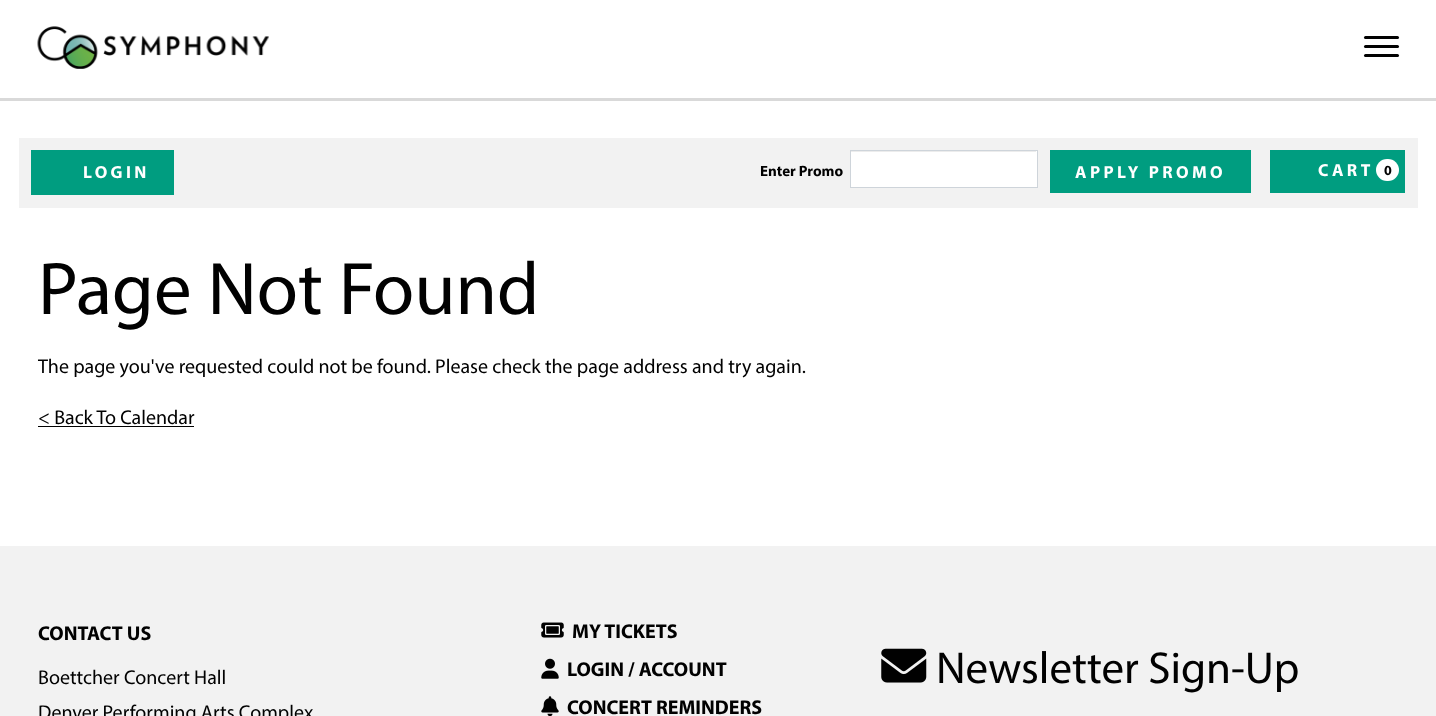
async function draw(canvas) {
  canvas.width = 1436
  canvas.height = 716
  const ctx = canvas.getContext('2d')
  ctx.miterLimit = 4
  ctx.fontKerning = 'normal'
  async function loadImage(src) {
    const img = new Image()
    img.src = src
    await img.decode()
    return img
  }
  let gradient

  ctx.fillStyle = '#fff'
  ctx.fillRect(0, 0, 1436, 716)
  ctx.fillStyle = '#d9d9d9'
  ctx.fillRect(0, 98, 1436, 3)
  ctx.drawImage(await loadImage('image0.png'), 37, 26, 232, 43)
  ctx.fillStyle = '#010101'
  ctx.beginPath()
  ctx.roundRect(1364, 36, 35, 3, 1.5)
  ctx.fill()
  ctx.beginPath()
  ctx.roundRect(1364, 45, 35, 3, 1.5)
  ctx.fill()
  ctx.beginPath()
  ctx.roundRect(1364, 54, 35, 3, 1.5)
  ctx.fill()
  ctx.fillStyle = '#f2f2f2'
  ctx.fillRect(19, 138, 1399, 70)
  gradient = ctx.createLinearGradient(345, 123, 373, 434)
  gradient.addColorStop(0.48, '#009d80')
  gradient.addColorStop(0.51, '#010101')
  ctx.fillStyle = gradient
  ctx.fillRect(31, 150, 143, 45)
  ctx.letterSpacing = '3.4px'
  ctx.font = 'bold 17.5px Myriad'
  ctx.fillStyle = '#fff'
  ctx.fillText('LOGIN', 83, 178)
  ctx.letterSpacing = '0px'
  ctx.font = 'bold 15px Myriad'
  ctx.fillStyle = '#010101'
  ctx.fillText('Enter Promo', 760, 176)
  ctx.fillStyle = '#fff'
  ctx.fillRect(851, 151, 186, 36)
  ctx.fillStyle = '#ececec'
  ctx.fillRect(851, 151, 185, 1)
  ctx.strokeStyle = '#ced4da'
  ctx.strokeRect(850.5, 150.5, 187, 37)
  gradient = ctx.createLinearGradient(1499, 111, 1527, 432)
  gradient.addColorStop(0.48, '#009d80')
  gradient.addColorStop(0.51, '#010101')
  ctx.fillStyle = gradient
  ctx.fillRect(1050, 150, 201, 43)
  ctx.letterSpacing = '3.4px'
  ctx.font = 'bold 17.5px Myriad'
  ctx.fillStyle = '#fff'
  ctx.fillText('APPLY PROMO', 1075, 178)
  gradient = ctx.createLinearGradient(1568, 124, 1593, 418)
  gradient.addColorStop(0.48, '#009d80')
  gradient.addColorStop(0.51, '#010101')
  ctx.fillStyle = gradient
  ctx.fillRect(1270, 150, 135, 43)
  ctx.fillStyle = '#fff'
  ctx.fillText('CART', 1318, 176)
  ctx.beginPath()
  ctx.roundRect(1376, 159, 23, 22, 11)
  ctx.fill()
  ctx.letterSpacing = '0px'
  ctx.font = 'bold 14px Myriad'
  ctx.fillStyle = '#010101'
  ctx.fillText('0', 1384, 175)
  ctx.font = '75px Myriad'
  ctx.fillText('Page Not Found', 38, 314)
  ctx.font = '20px Myriad'
  ctx.fillText('The page you\'ve requested could not be found. Please check the page address and try again.', 38, 373)
  ctx.fillText('< Back To Calendar', 38, 424)
  ctx.fillRect(38, 426, 156, 1)
  ctx.fillStyle = '#f2f2f2'
  ctx.fillRect(0, 546, 1436, 170)
  ctx.font = 'bold 20px Myriad'
  ctx.fillStyle = '#010101'
  ctx.fillText('CONTACT US', 38, 640)
  ctx.font = '20px Myriad'
  ctx.fillText('Boettcher Concert Hall', 38, 684)
  ctx.fillText('Denver Performing Arts Complex', 38, 719)
  ctx.drawImage(await loadImage('image1.png'), 541, 622, 23, 16)
  ctx.font = 'bold 20px Myriad'
  ctx.fillText('MY TICKETS', 572, 638)
  ctx.drawImage(await loadImage('image2.png'), 541, 658, 18, 21)
  ctx.fillText('LOGIN / ACCOUNT', 567, 676)
  ctx.drawImage(await loadImage('image3.png'), 541, 696, 18, 20)
  ctx.fillText('CONCERT REMINDERS', 567, 714)
  ctx.drawImage(await loadImage('image4.png'), 881, 648, 46, 35)
  ctx.font = '45px Myriad'
  ctx.fillText('Newsletter Sign-Up', 936, 683)
}

draw(document.querySelector('canvas'))
